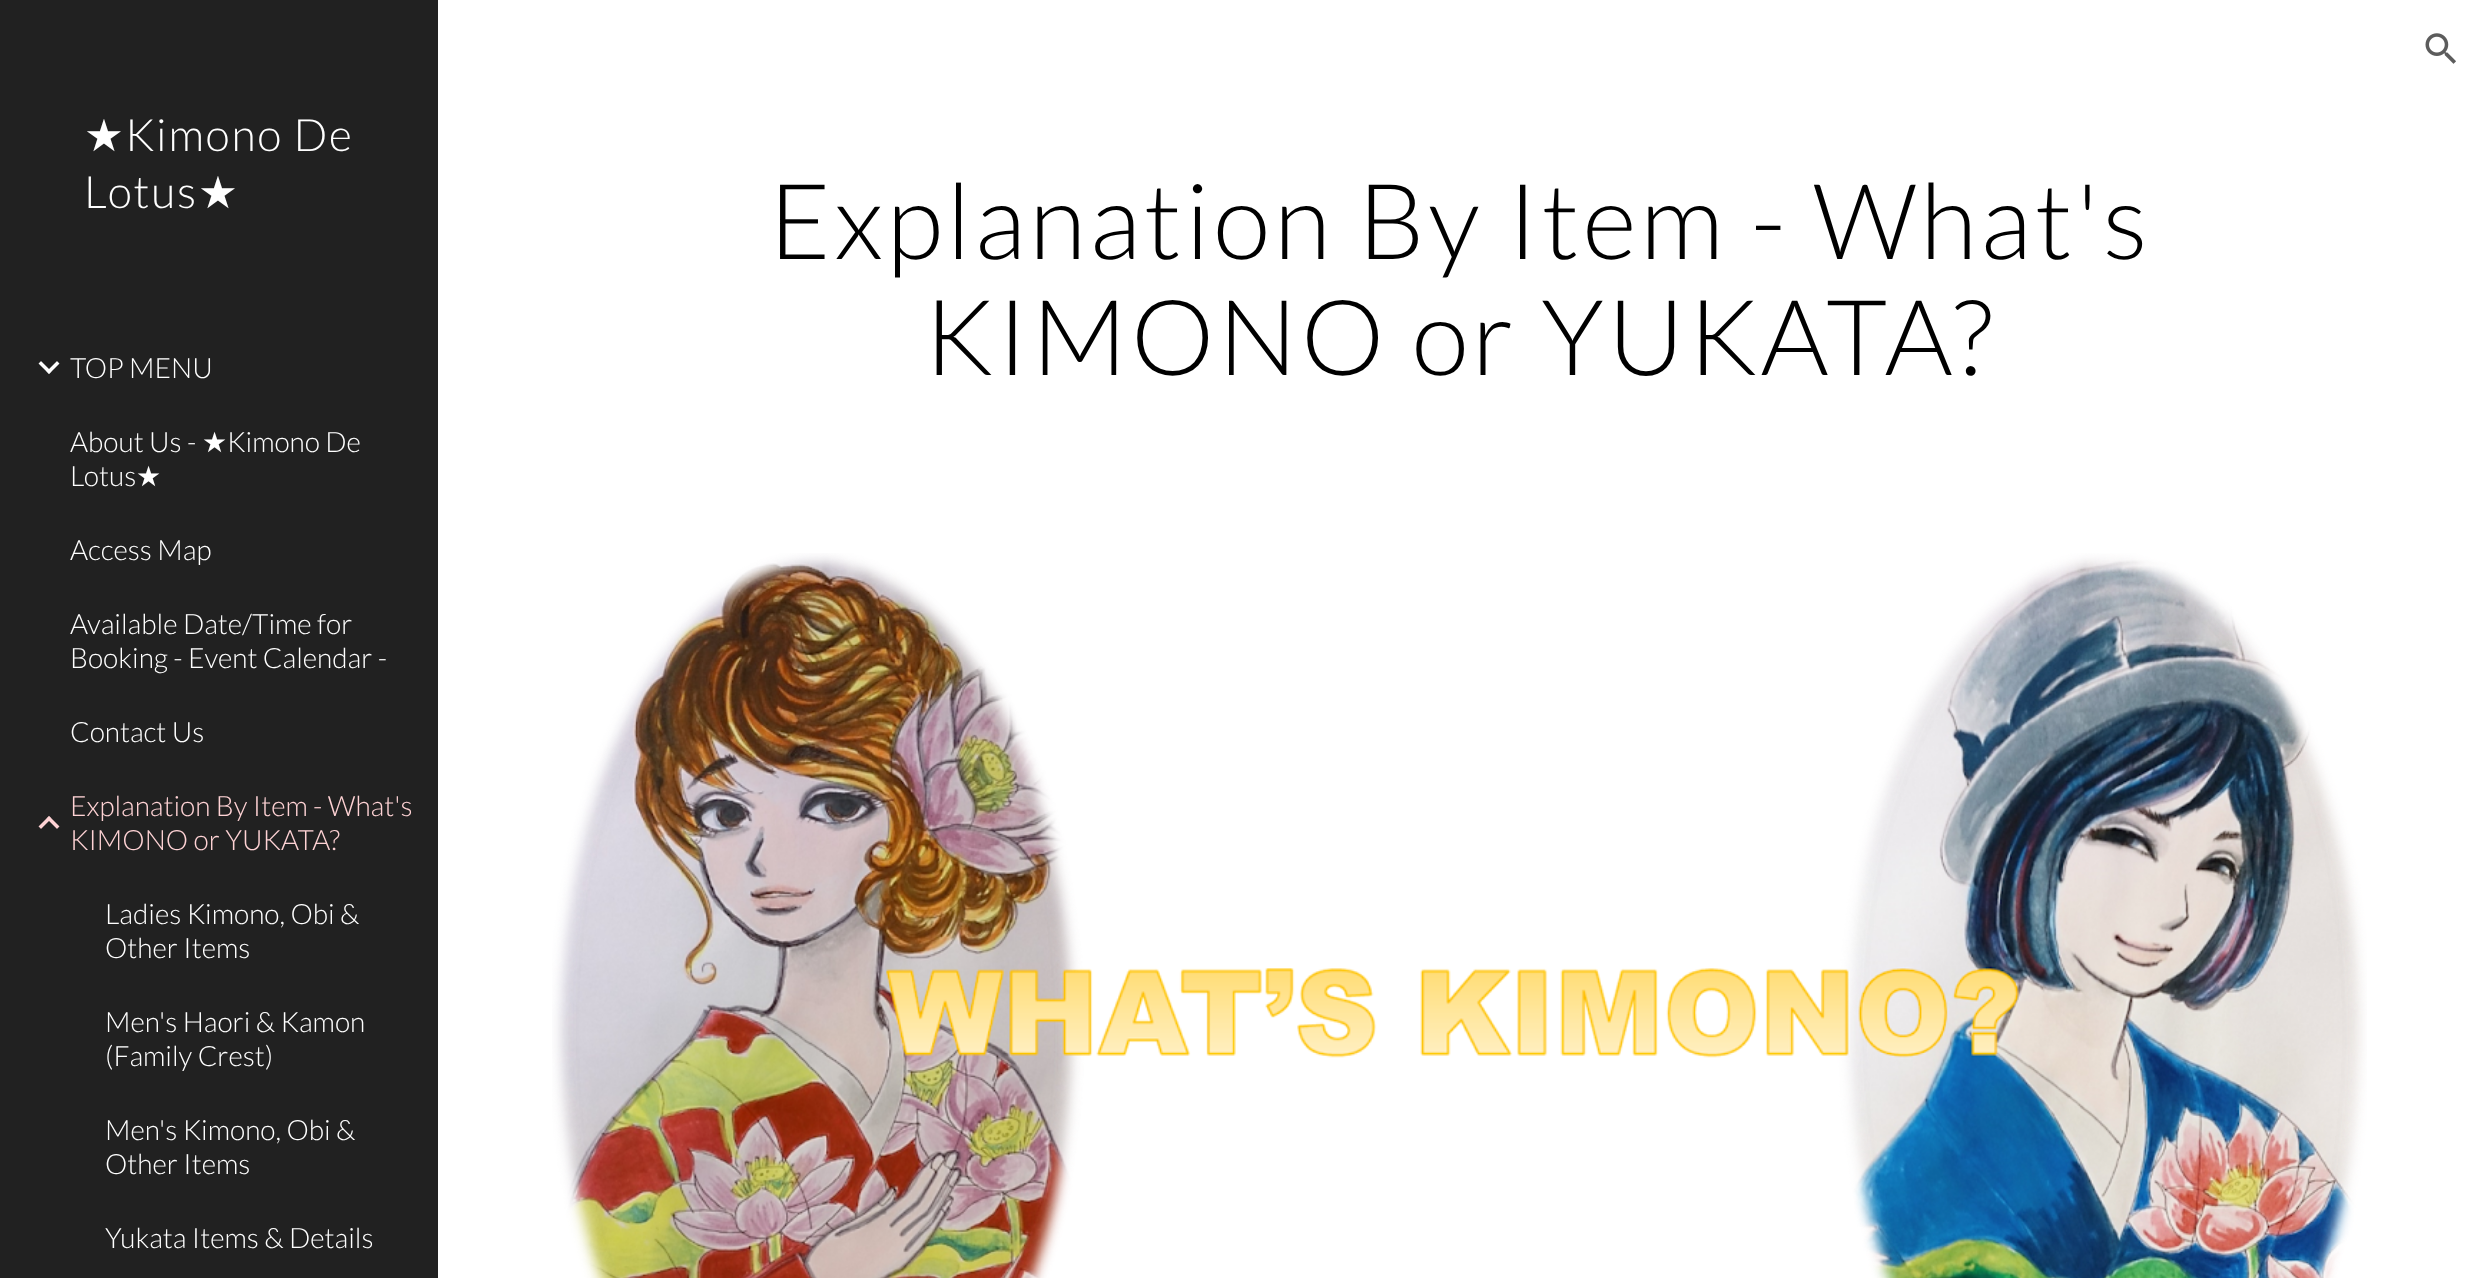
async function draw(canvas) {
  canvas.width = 2483
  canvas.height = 1278
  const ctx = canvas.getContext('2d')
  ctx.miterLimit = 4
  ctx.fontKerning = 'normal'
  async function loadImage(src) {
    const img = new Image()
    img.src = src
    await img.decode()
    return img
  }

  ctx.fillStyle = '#fff'
  ctx.fillRect(0, 0, 2483, 1278)
  ctx.drawImage(await loadImage('image0.png'), 2425, 33, 31, 31)
  ctx.fillStyle = '#212121'
  ctx.fillRect(0, 0, 438, 1278)
  ctx.letterSpacing = '1.75px'
  ctx.font = '44.5px DejaVu Sans'
  ctx.fillStyle = '#fff'
  ctx.fillText('★', 84, 151)
  ctx.font = '300 44.5px Lato'
  ctx.fillText('Kimono De', 125, 151)
  ctx.fillText('Lotus', 84, 208)
  ctx.font = '44.5px DejaVu Sans'
  ctx.fillText('★', 198, 208)
  ctx.drawImage(await loadImage('image1.png'), 38, 361, 22, 13)
  ctx.letterSpacing = '0px'
  ctx.font = '300 28px Lato'
  ctx.fillText('TOP MENU', 70, 378)
  ctx.fillText('About Us -', 70, 452)
  ctx.font = '28px DejaVu Sans'
  ctx.fillText('★', 202, 452)
  ctx.font = '300 28px Lato'
  ctx.fillText('Kimono De', 227, 452)
  ctx.fillText('Lotus', 70, 486)
  ctx.font = '28px DejaVu Sans'
  ctx.fillText('★', 136, 486)
  ctx.font = '300 28px Lato'
  ctx.fillText('Access Map', 70, 560)
  ctx.fillText('Available Date/Time for', 70, 634)
  ctx.fillText('Booking - Event Calendar -', 70, 668)
  ctx.fillText('Contact Us', 70, 742)
  ctx.drawImage(await loadImage('image2.png'), 38, 816, 22, 13)
  ctx.fillStyle = '#ffd3d5'
  ctx.fillText('Explanation By Item - What\'s', 70, 816)
  ctx.fillText('KIMONO or YUKATA?', 70, 850)
  ctx.fillStyle = '#fff'
  ctx.fillText('Ladies Kimono, Obi &', 105, 924)
  ctx.fillText('Other Items', 105, 958)
  ctx.fillText('Men\'s Haori & Kamon', 105, 1032)
  ctx.fillText('(Family Crest)', 105, 1066)
  ctx.fillText('Men\'s Kimono, Obi &', 105, 1140)
  ctx.fillText('Other Items', 105, 1174)
  ctx.fillText('Yukata Items & Details', 105, 1248)
  ctx.letterSpacing = '3.5px'
  ctx.font = '300 105px Lato'
  ctx.fillStyle = '#000'
  ctx.fillText('Explanation By Item - What\'s', 769, 259)
  ctx.fillText('KIMONO or YUKATA?', 924, 375)
  ctx.drawImage(await loadImage('image3.png'), 552, 553, 1815, 725)
}

draw(document.querySelector('canvas'))
